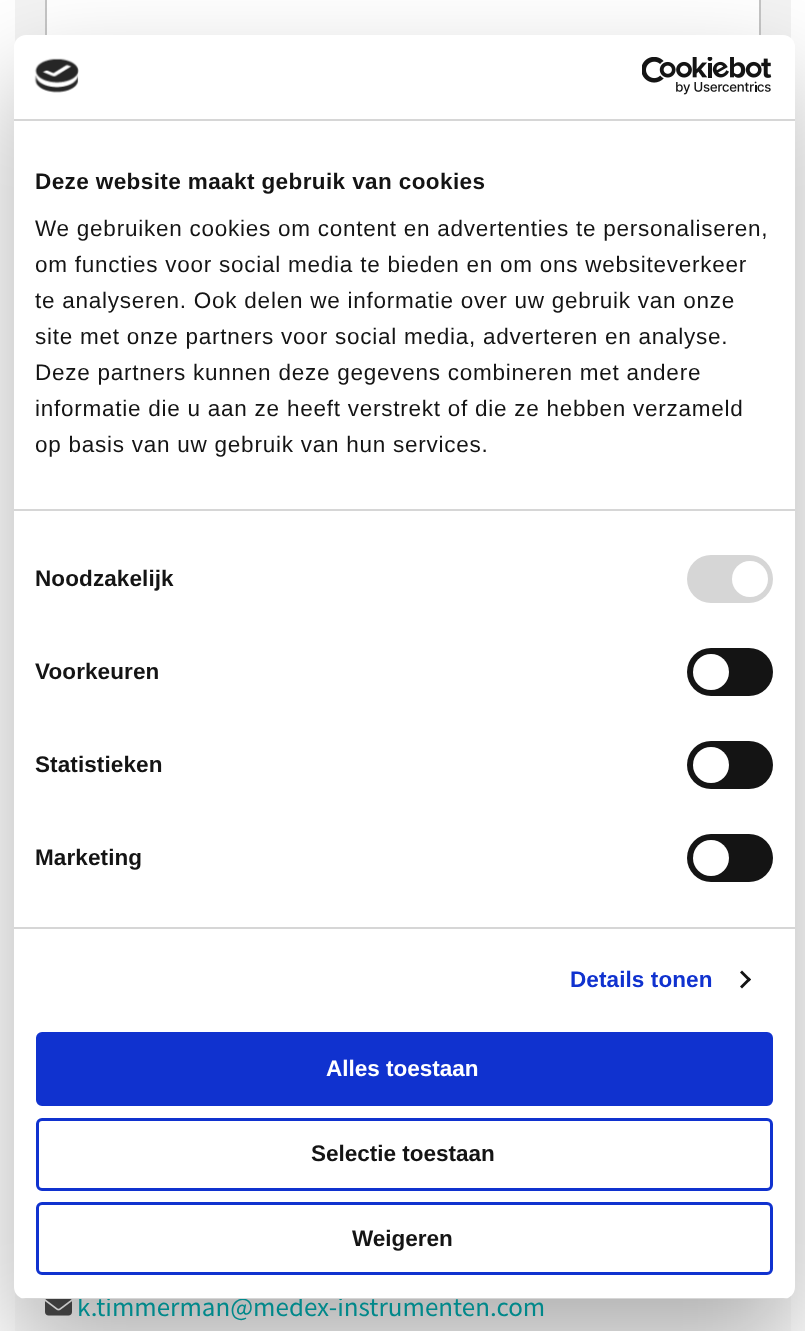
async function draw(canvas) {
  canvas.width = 805
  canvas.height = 1331
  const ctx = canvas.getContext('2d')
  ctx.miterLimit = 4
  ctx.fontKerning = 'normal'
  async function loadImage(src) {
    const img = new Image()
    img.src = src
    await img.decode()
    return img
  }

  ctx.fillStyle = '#fff'
  ctx.fillRect(0, 0, 805, 1331)
  ctx.fillStyle = '#f3f3f3'
  ctx.fillRect(15, 0, 776, 43)
  ctx.fillStyle = '#fff'
  ctx.fillRect(47, 0, 712, 35)
  ctx.strokeStyle = '#c5c5c5'
  ctx.lineWidth = 2
  ctx.strokeRect(46, -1, 714, 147)
  ctx.fillStyle = '#fafafa'
  ctx.fillRect(15, 1291, 776, 40)
  ctx.drawImage(await loadImage('image2.png'), 45, 1299, 27, 17)
  ctx.fillStyle = '#0000004d'
  ctx.filter = 'blur(51px)'
  ctx.beginPath()
  ctx.roundRect(14, 83, 781, 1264, 12)
  ctx.fill()
  ctx.filter = 'none'
  ctx.font = '27px Source Sans Pro'
  ctx.fillStyle = '#00888a'
  ctx.fillText('k.timmerman@medex-instrumenten.com', 77, 1316)
  ctx.fillStyle = '#fff'
  ctx.beginPath()
  ctx.roundRect(14, 35, 781, 1264, 12)
  ctx.fill()
  ctx.fillStyle = '#d6d6d6'
  ctx.fillRect(14, 119, 781, 2)
  ctx.drawImage(await loadImage('image0.png'), 34, 58, 45, 35)
  ctx.drawImage(await loadImage('image1.png'), 642, 57, 130, 38)
  ctx.fillRect(14, 509, 781, 2)
  ctx.letterSpacing = '0.4px'
  ctx.font = 'bold 22.5px Liberation Sans'
  ctx.fillStyle = '#141414'
  ctx.fillText('Deze website maakt gebruik van cookies', 35, 189)
  ctx.letterSpacing = '0.75px'
  ctx.font = '22.5px Liberation Sans'
  ctx.fillText('We gebruiken cookies om content en advertenties te personaliseren,', 35, 236)
  ctx.fillText('om functies voor social media te bieden en om ons websiteverkeer', 35, 272)
  ctx.fillText('te analyseren. Ook delen we informatie over uw gebruik van onze', 35, 308)
  ctx.fillText('site met onze partners voor social media, adverteren en analyse.', 35, 344)
  ctx.fillText('Deze partners kunnen deze gegevens combineren met andere', 35, 380)
  ctx.fillText('informatie die u aan ze heeft verstrekt of die ze hebben verzameld', 35, 416)
  ctx.fillText('op basis van uw gebruik van hun services.', 35, 452)
  ctx.fillStyle = '#d6d6d6'
  ctx.fillRect(14, 927, 781, 2)
  ctx.letterSpacing = '0.1px'
  ctx.font = 'bold 22.5px Liberation Sans'
  ctx.fillStyle = '#141414'
  ctx.fillText('Noodzakelijk', 35, 586)
  ctx.fillStyle = '#d6d6d6'
  ctx.beginPath()
  ctx.roundRect(687, 555, 86, 48, 24)
  ctx.fill()
  ctx.fillStyle = '#fff'
  ctx.beginPath()
  ctx.arc(750, 579, 18, 0, 2 * Math.PI)
  ctx.fill()
  ctx.fillStyle = '#141414'
  ctx.fillText('Voorkeuren', 35, 679)
  ctx.beginPath()
  ctx.roundRect(687, 648, 86, 48, 24)
  ctx.fill()
  ctx.fillStyle = '#fff'
  ctx.beginPath()
  ctx.arc(711, 672, 18, 0, 2 * Math.PI)
  ctx.fill()
  ctx.fillStyle = '#141414'
  ctx.fillText('Statistieken', 35, 772)
  ctx.beginPath()
  ctx.roundRect(687, 741, 86, 48, 24)
  ctx.fill()
  ctx.fillStyle = '#fff'
  ctx.beginPath()
  ctx.arc(711, 765, 18, 0, 2 * Math.PI)
  ctx.fill()
  ctx.fillStyle = '#141414'
  ctx.fillText('Marketing', 35, 865)
  ctx.beginPath()
  ctx.roundRect(687, 834, 86, 48, 24)
  ctx.fill()
  ctx.fillStyle = '#fff'
  ctx.beginPath()
  ctx.arc(711, 858, 18, 0, 2 * Math.PI)
  ctx.fill()
  ctx.fillStyle = '#1032cf'
  ctx.fillText('Details tonen', 570, 987)
  ctx.fillStyle = '#141414'
  ctx.beginPath()
  ctx.moveTo(742, 970.5)
  ctx.lineTo(751, 979.5)
  ctx.lineTo(749, 981.5)
  ctx.lineTo(740, 972.5)
  ctx.closePath()
  ctx.fill()
  ctx.beginPath()
  ctx.moveTo(749, 977.5)
  ctx.lineTo(751, 979.5)
  ctx.lineTo(742, 988.5)
  ctx.lineTo(740, 986.5)
  ctx.closePath()
  ctx.fill()
  ctx.save()
  ctx.beginPath()
  ctx.roundRect(14, 35, 781, 1264, 12)
  ctx.clip()
  ctx.fillStyle = '#d6d6d6'
  ctx.fillRect(14, 1298, 781, 1)
  ctx.restore()
  ctx.fillStyle = '#1032cf'
  ctx.beginPath()
  ctx.roundRect(37.5, 1033.5, 734, 71, 4.5)
  ctx.fill()
  ctx.strokeStyle = '#1032cf'
  ctx.lineWidth = 3
  ctx.stroke()
  ctx.letterSpacing = '0px'
  ctx.fillStyle = '#fff'
  ctx.fillText('Alles toestaan', 326, 1076)
  ctx.beginPath()
  ctx.roundRect(37.5, 1119.5, 734, 70, 4.5)
  ctx.stroke()
  ctx.fillStyle = '#141414'
  ctx.fillText('Selectie toestaan', 311, 1161)
  ctx.beginPath()
  ctx.roundRect(37.5, 1203.5, 734, 70, 4.5)
  ctx.stroke()
  ctx.fillText('Weigeren', 352, 1246)
}

draw(document.querySelector('canvas'))
